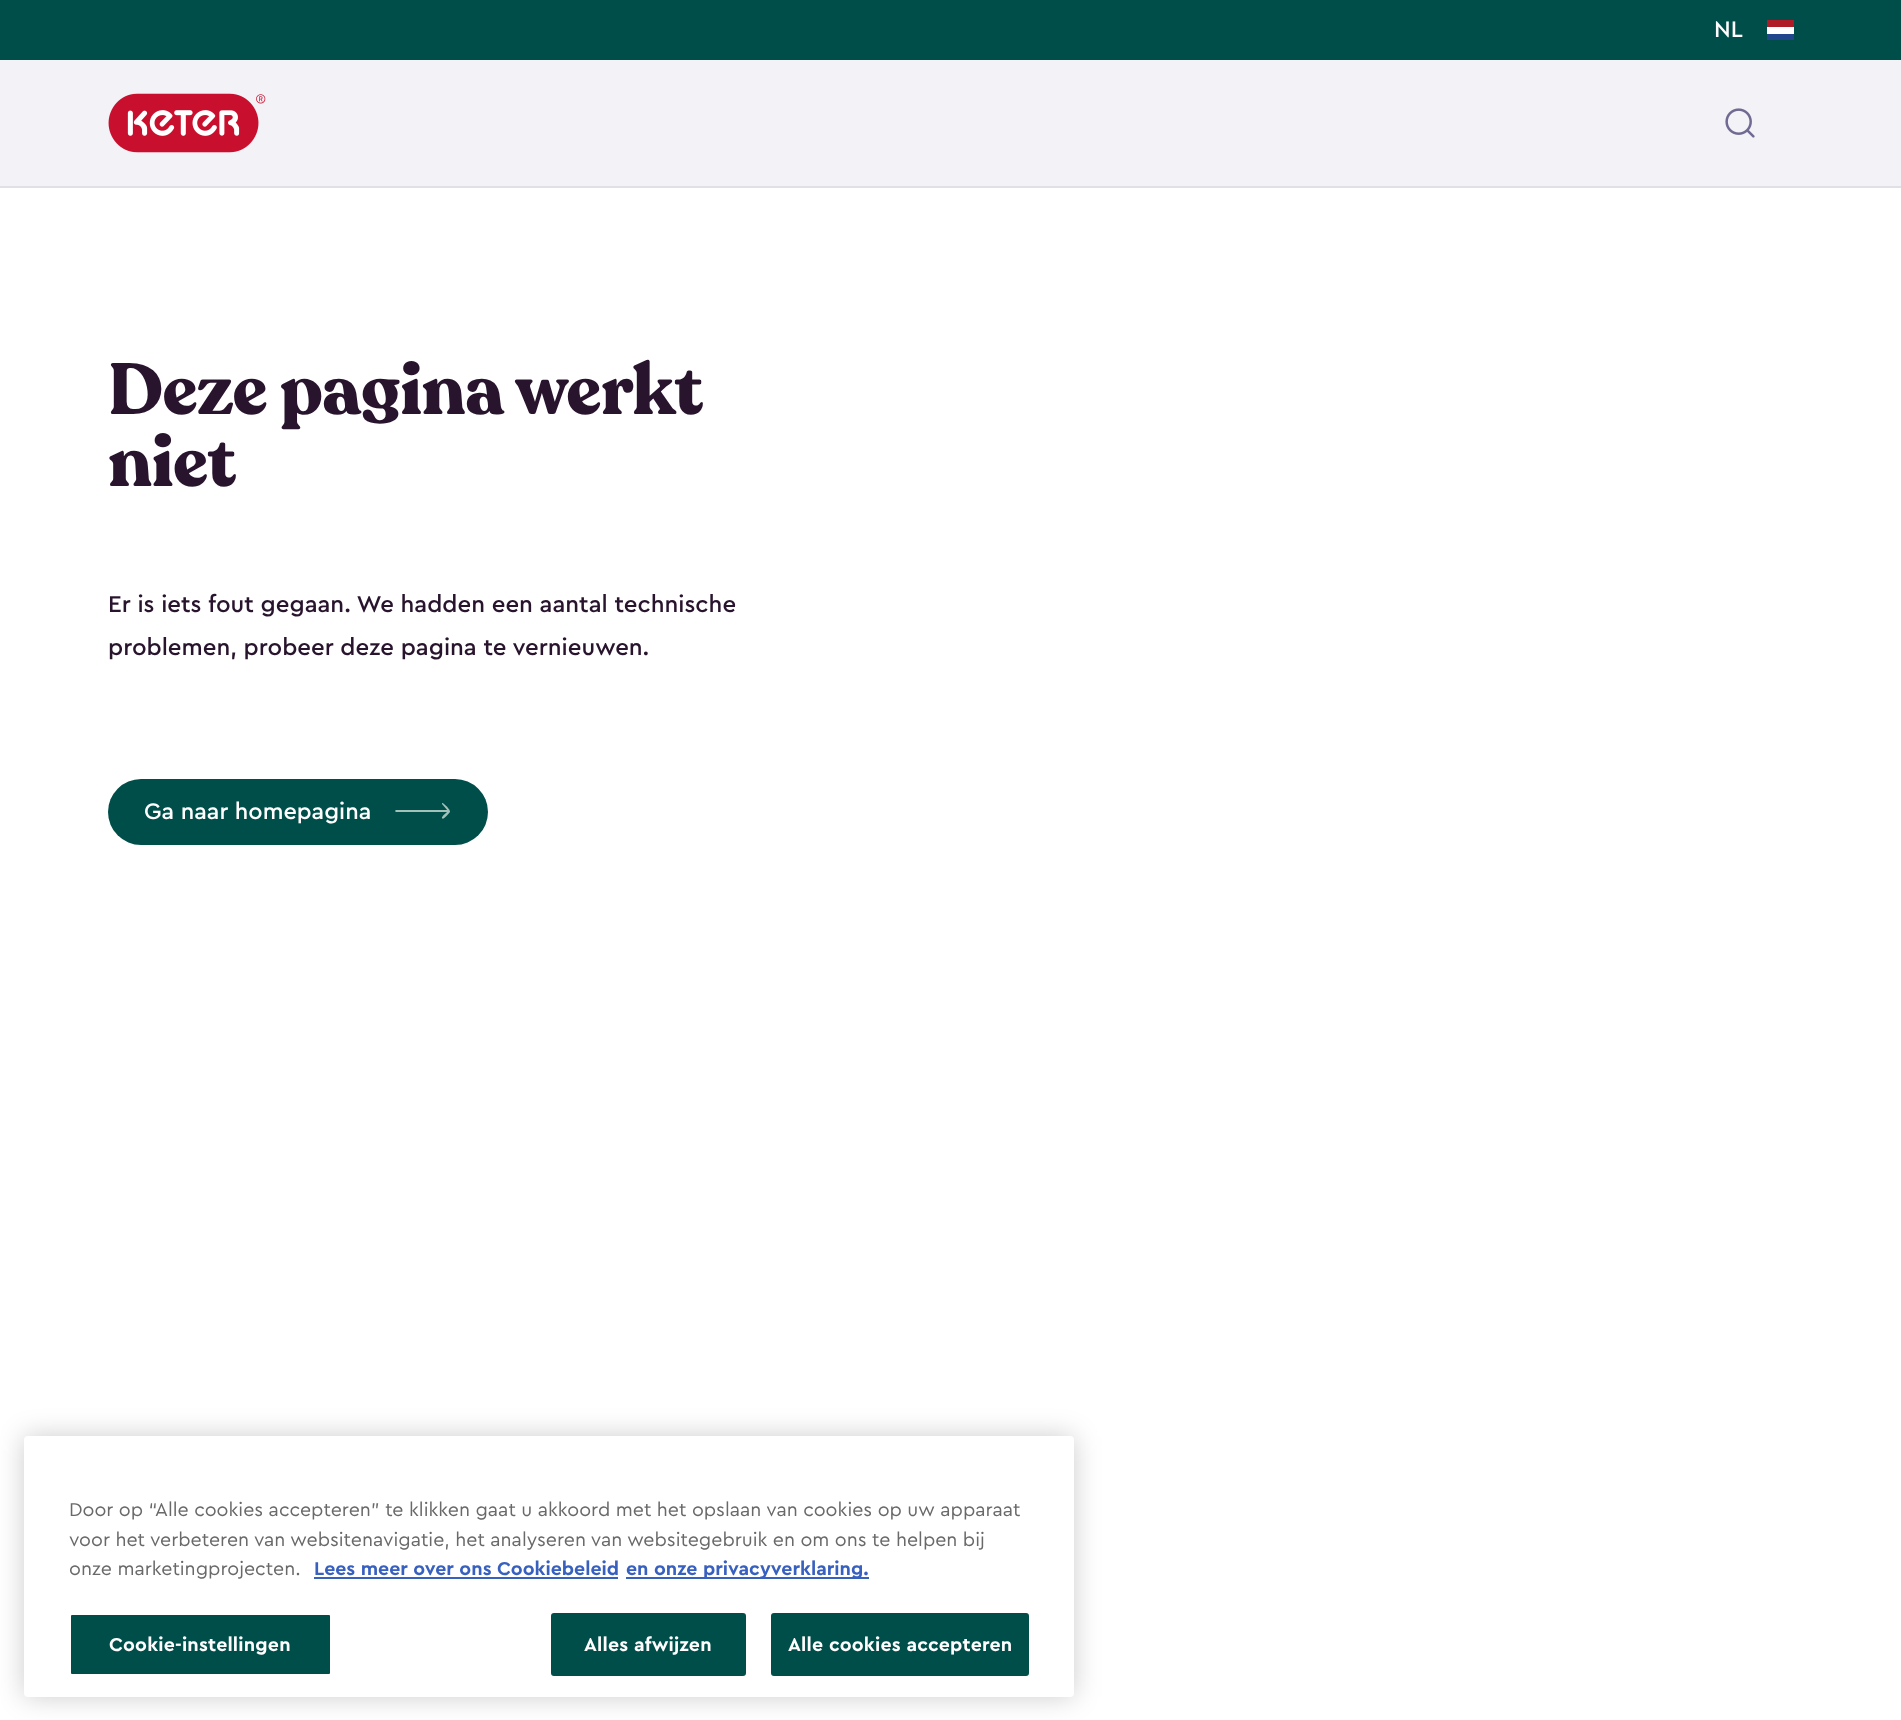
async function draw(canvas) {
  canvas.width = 1901
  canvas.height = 1720
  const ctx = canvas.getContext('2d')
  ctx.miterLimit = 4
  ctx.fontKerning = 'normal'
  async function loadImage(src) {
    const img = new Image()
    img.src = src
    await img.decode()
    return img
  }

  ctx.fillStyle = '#fff'
  ctx.fillRect(0, 0, 1901, 1720)
  ctx.fillStyle = '#004e4a'
  ctx.fillRect(0, 0, 1901, 60)
  ctx.font = '500 23.5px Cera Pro'
  ctx.fillStyle = '#fff'
  ctx.fillText('NL', 1714, 37)
  ctx.fillStyle = '#21468b'
  ctx.fillRect(1767, 34, 27, 6)
  ctx.fillStyle = '#fff'
  ctx.fillRect(1767, 27, 27, 7)
  ctx.fillStyle = '#ae1c28'
  ctx.fillRect(1767, 20, 27, 7)
  ctx.fillStyle = '#f2f2f7'
  ctx.fillRect(0, 60, 1901, 126)
  ctx.fillStyle = '#e2e0e7'
  ctx.fillRect(0, 186, 1901, 2)
  ctx.drawImage(await loadImage('image0.png'), 108, 93, 158, 60)
  ctx.drawImage(await loadImage('image1.png'), 1725, 108, 30, 30)
  ctx.letterSpacing = '-0.75px'
  ctx.font = 'bold 71.75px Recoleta'
  ctx.fillStyle = '#29142e'
  ctx.fillText('Deze pagina werkt', 108, 414)
  ctx.fillText('niet', 108, 486)
  ctx.letterSpacing = '0px'
  ctx.font = '500 24px Cera Pro'
  ctx.fillText('Er is iets fout gegaan. We hadden een aantal technische', 108, 612)
  ctx.fillText('problemen, probeer deze pagina te vernieuwen.', 108, 655)
  ctx.fillStyle = '#004e4a'
  ctx.beginPath()
  ctx.roundRect(108, 779, 380, 66, 33)
  ctx.fill()
  ctx.font = '500 23.5px Cera Pro'
  ctx.fillStyle = '#fff'
  ctx.fillText('Ga naar homepagina', 144, 819)
  ctx.fillStyle = '#a1c1b9'
  ctx.beginPath()
  ctx.moveTo(396, 810)
  ctx.bezierCurveTo(395, 810, 395, 812, 396, 812)
  ctx.closePath()
  ctx.moveTo(450, 812)
  ctx.bezierCurveTo(451, 810, 443, 802, 442, 803)
  ctx.lineTo(442, 804)
  ctx.lineTo(448, 811)
  ctx.bezierCurveTo(447, 812, 441, 817, 442, 818)
  ctx.bezierCurveTo(443, 821, 449, 813, 450, 812)
  ctx.closePath()
  ctx.moveTo(396, 812)
  ctx.lineTo(449, 812)
  ctx.lineTo(449, 810)
  ctx.lineTo(396, 810)
  ctx.closePath()
  ctx.fill()
  ctx.fillStyle = '#00000033'
  ctx.filter = 'blur(13.5px)'
  ctx.beginPath()
  ctx.roundRect(24, 1436, 1050, 261, 4)
  ctx.fill()
  ctx.filter = 'none'
  ctx.fillStyle = '#fff'
  ctx.beginPath()
  ctx.roundRect(24, 1436, 1050, 261, 4)
  ctx.fill()
  ctx.font = '19.5px Cera Pro'
  ctx.fillStyle = '#696969'
  ctx.fillText('Door op “Alle cookies accepteren” te klikken gaat u akkoord met het opslaan van cookies op uw apparaat', 69, 1516)
  ctx.fillText('voor het verbeteren van websitenavigatie, het analyseren van websitegebruik en om ons te helpen bij', 69, 1546)
  ctx.fillText('onze marketingprojecten.', 69, 1575)
  ctx.font = 'bold 19.5px Cera Pro'
  ctx.fillStyle = '#3860be'
  ctx.fillText('Lees meer over ons Cookiebeleid', 314, 1575)
  ctx.fillRect(314, 1577, 304, 2)
  ctx.fillRect(626, 1577, 243, 2)
  ctx.fillText('en onze privacyverklaring.', 626, 1575)
  ctx.fillStyle = '#004e4a'
  ctx.beginPath()
  ctx.roundRect(70, 1614, 261, 61, 2)
  ctx.fill()
  ctx.strokeStyle = '#fff'
  ctx.lineWidth = 2
  ctx.stroke()
  ctx.letterSpacing = '0.2px'
  ctx.fillStyle = '#fff'
  ctx.fillText('Cookie-instellingen', 109, 1651)
  ctx.fillStyle = '#004e4a'
  ctx.beginPath()
  ctx.roundRect(552, 1614, 193, 61, 2)
  ctx.fill()
  ctx.strokeStyle = '#004e4a'
  ctx.stroke()
  ctx.fillStyle = '#fff'
  ctx.fillText('Alles afwijzen', 584, 1651)
  ctx.fillStyle = '#004e4a'
  ctx.beginPath()
  ctx.roundRect(772, 1614, 256, 61, 2)
  ctx.fill()
  ctx.stroke()
  ctx.fillStyle = '#fff'
  ctx.fillText('Alle cookies accepteren', 788, 1651)
}

draw(document.querySelector('canvas'))
